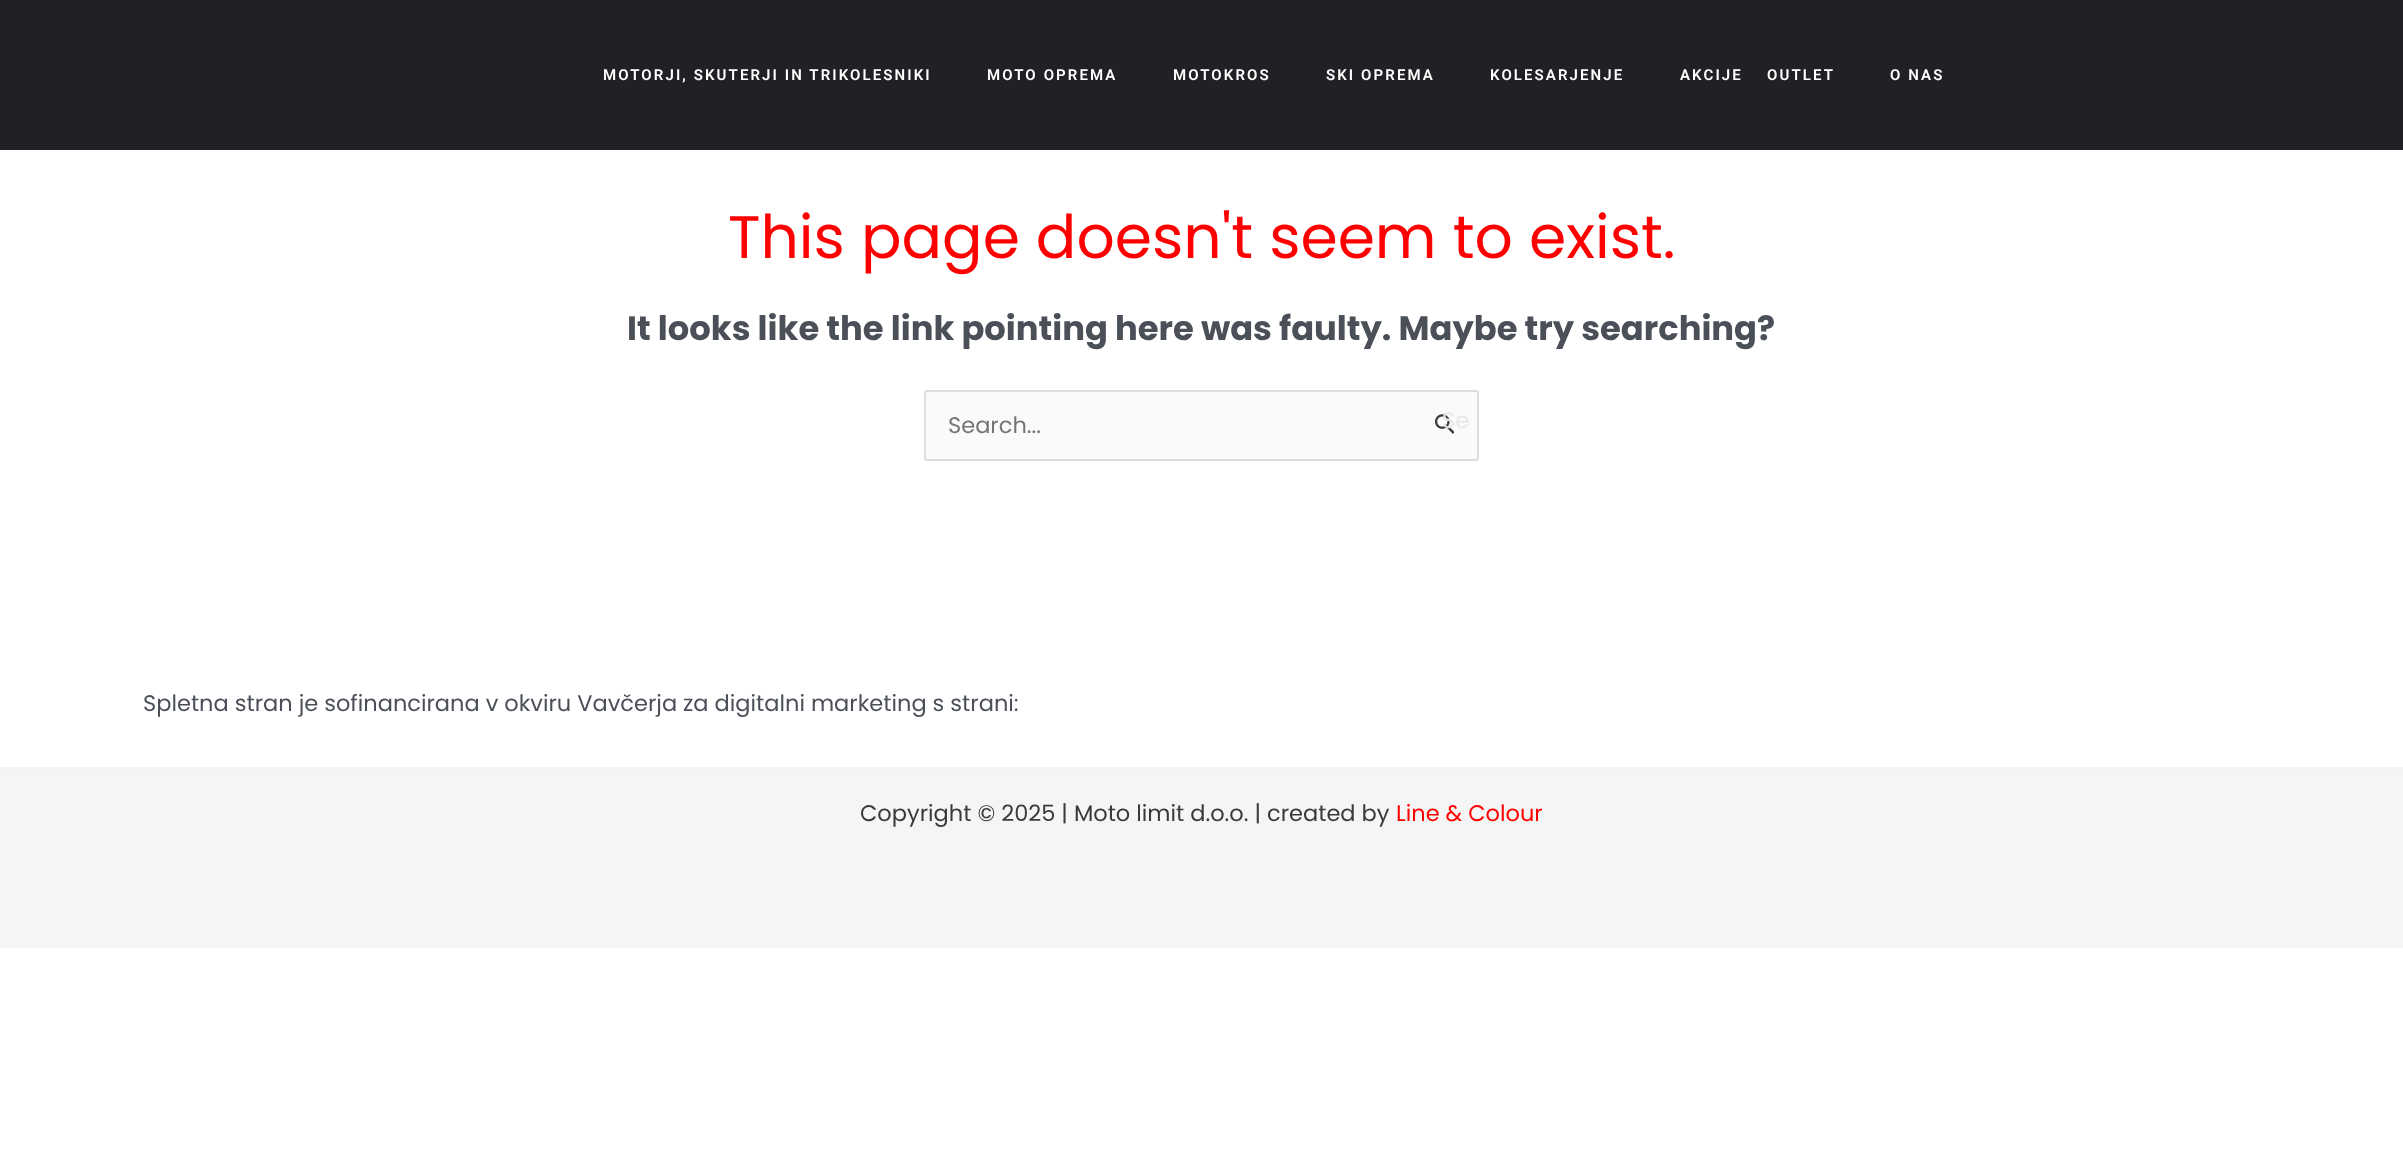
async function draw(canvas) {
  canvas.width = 2403
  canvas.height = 1158
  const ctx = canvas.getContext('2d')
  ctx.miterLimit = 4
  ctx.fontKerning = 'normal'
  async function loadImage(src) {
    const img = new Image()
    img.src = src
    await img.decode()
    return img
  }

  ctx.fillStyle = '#fff'
  ctx.fillRect(0, 0, 2403, 1158)
  ctx.fillStyle = '#1f2125'
  ctx.fillRect(0, 0, 2403, 150)
  ctx.letterSpacing = '2.1px'
  ctx.font = '600 15px Roboto'
  ctx.fillStyle = '#fff'
  ctx.fillText('MOTORJI, SKUTERJI IN TRIKOLESNIKI', 603, 80)
  ctx.fillText('MOTO OPREMA', 987, 80)
  ctx.fillText('MOTOKROS', 1173, 80)
  ctx.fillText('SKI OPREMA', 1326, 80)
  ctx.fillText('KOLESARJENJE', 1490, 80)
  ctx.fillText('AKCIJE', 1680, 80)
  ctx.fillText('OUTLET', 1767, 80)
  ctx.fillText('O NAS', 1890, 80)
  ctx.letterSpacing = '0px'
  ctx.font = '60px Poppins'
  ctx.fillStyle = '#f00'
  ctx.fillText('This page doesn\'t seem to exist.', 728, 258)
  ctx.font = 'bold 33.75px Poppins'
  ctx.fillStyle = '#4b4f58'
  ctx.fillText('It looks like the link pointing here was faulty. Maybe try searching?', 627, 340)
  ctx.fillStyle = '#fafafa'
  ctx.beginPath()
  ctx.roundRect(925, 391, 553, 69, 2)
  ctx.fill()
  ctx.strokeStyle = '#ddd'
  ctx.lineWidth = 2
  ctx.stroke()
  ctx.font = '22.5px Poppins'
  ctx.fillStyle = '#757575'
  ctx.fillText('Search...', 948, 433)
  ctx.drawImage(await loadImage('image0.png'), 1435, 414, 19, 20)
  ctx.fillStyle = '#e7e7e7'
  ctx.fillText('Se', 1442, 428)
  ctx.fillStyle = '#4b4f58'
  ctx.fillText('Spletna stran je sofinancirana v okviru Vavčerja za digitalni marketing s strani:', 143, 711)
  ctx.fillStyle = '#f5f5f5'
  ctx.fillRect(0, 769, 2403, 179)
  ctx.fillStyle = '#f2f5f7'
  ctx.fillRect(0, 767, 2403, 2)
  ctx.fillStyle = '#3a3a3a'
  ctx.fillText('Copyright © 2025 | Moto limit d.o.o. | created by', 860, 821)
  ctx.fillStyle = '#f00'
  ctx.fillText('Line & Colour', 1396, 821)
}

draw(document.querySelector('canvas'))
